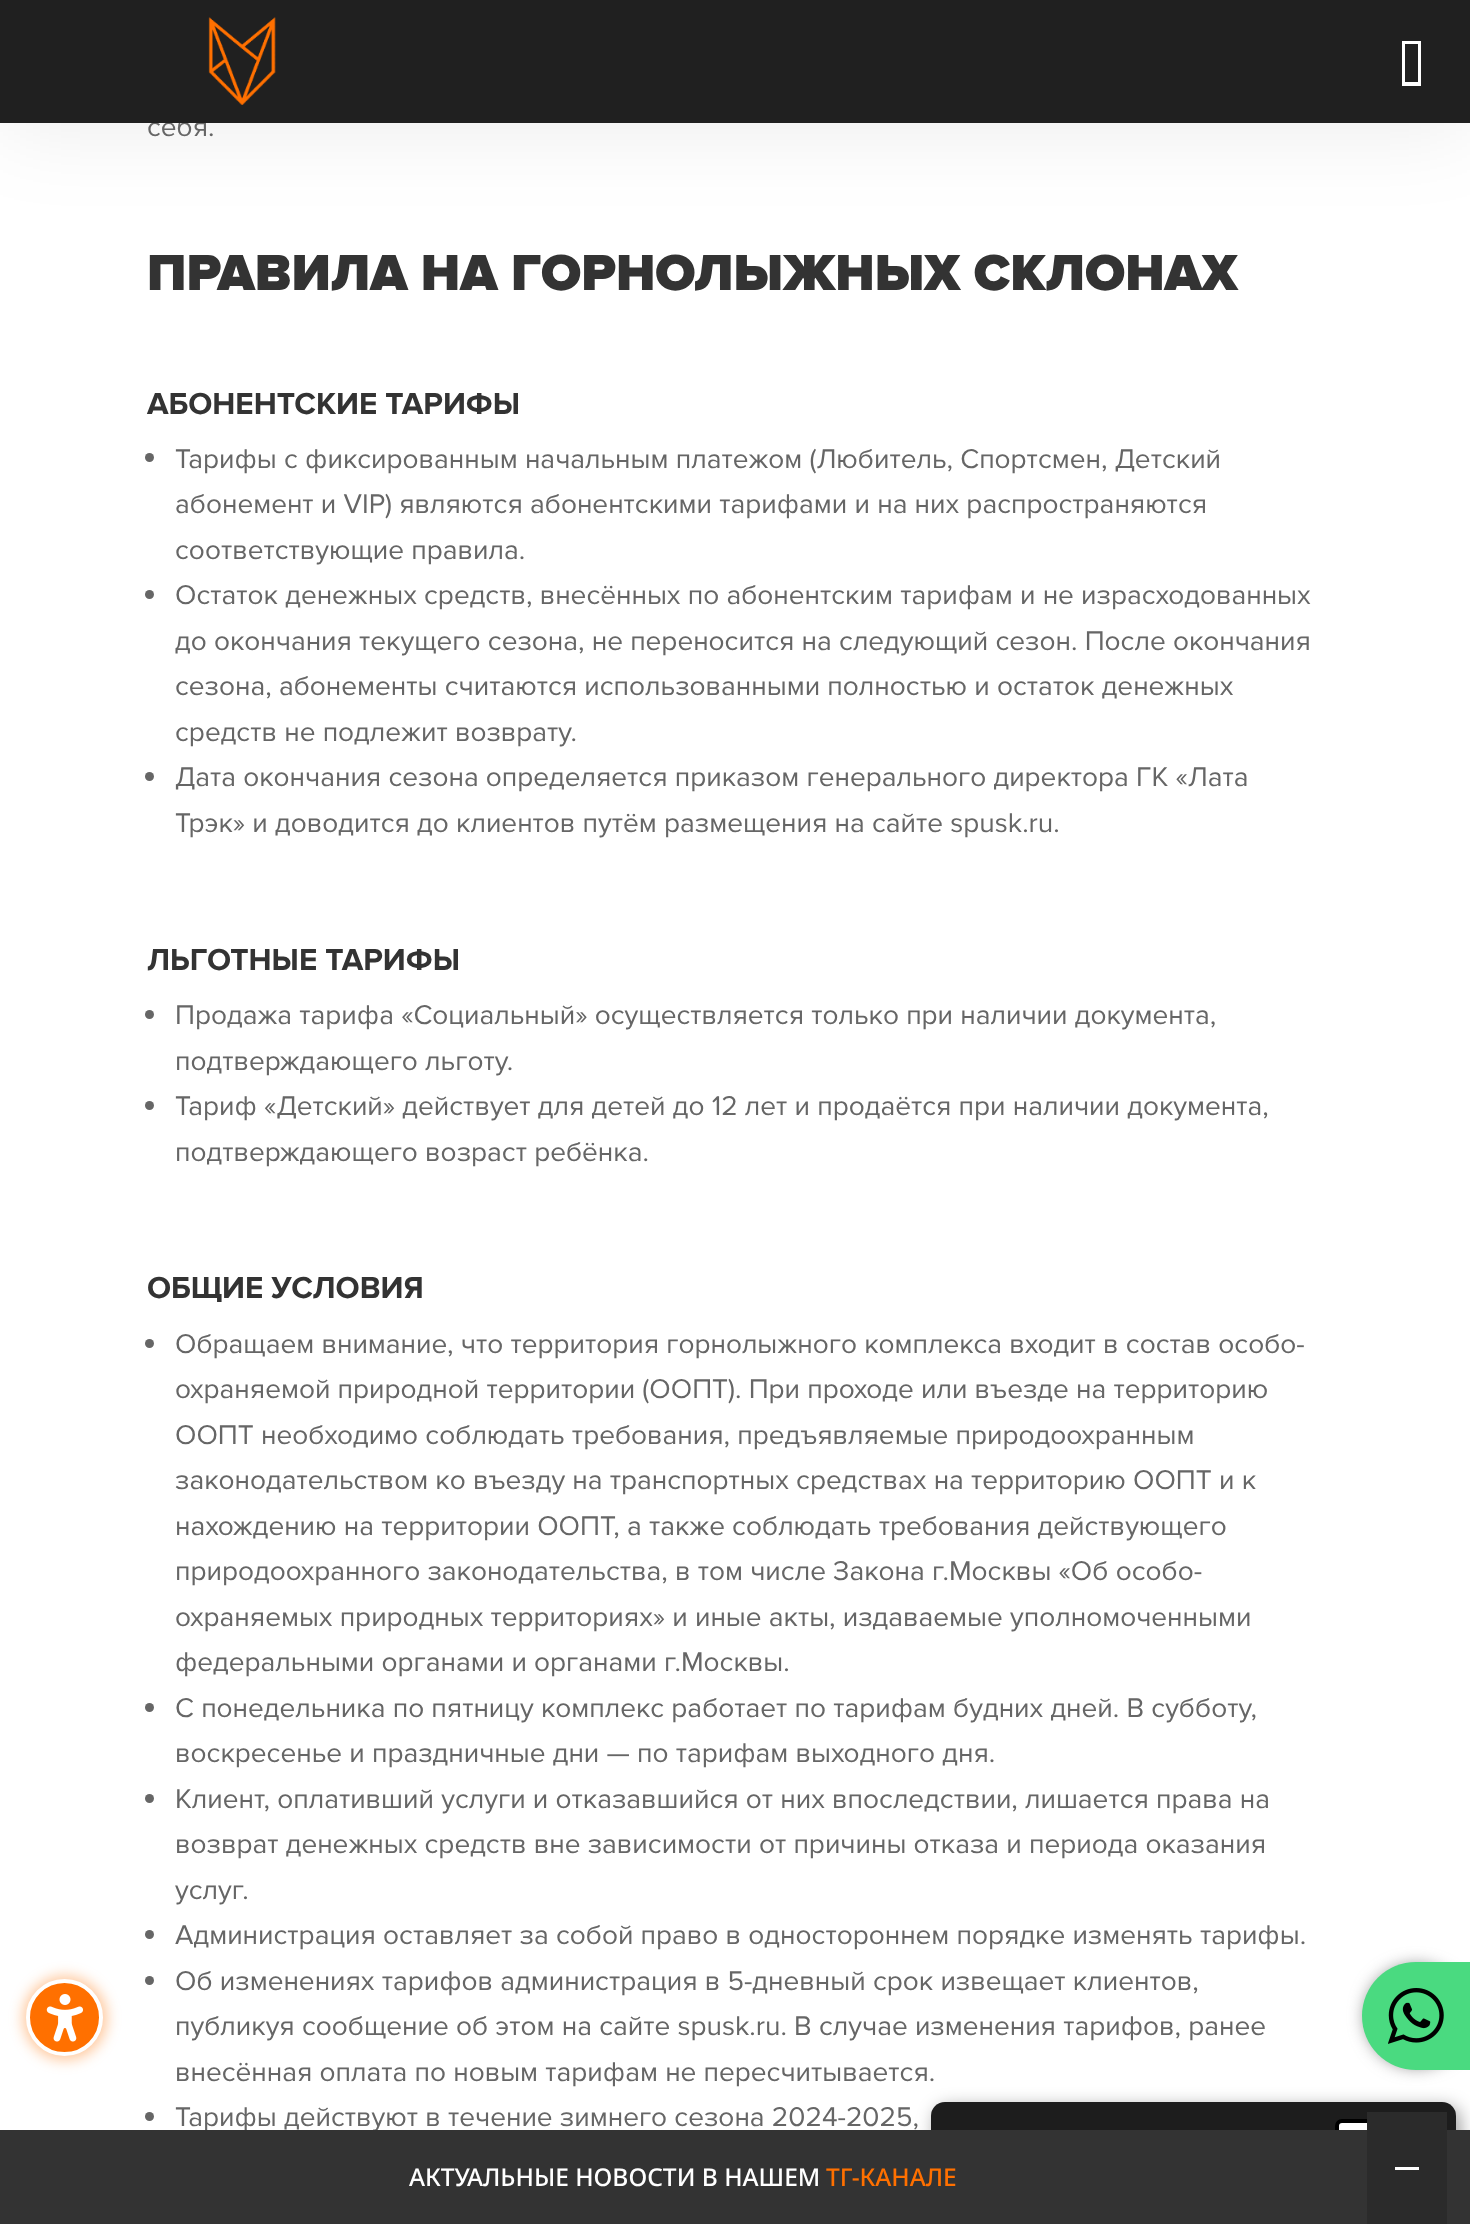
async function draw(canvas) {
  canvas.width = 1470
  canvas.height = 2224
  const ctx = canvas.getContext('2d')
  ctx.miterLimit = 4
  ctx.fontKerning = 'normal'
  async function loadImage(src) {
    const img = new Image()
    img.src = src
    await img.decode()
    return img
  }

  ctx.fillStyle = '#fff'
  ctx.fillRect(0, 0, 1470, 2224)
  ctx.fillStyle = '#ff700066'
  ctx.filter = 'blur(7px)'
  ctx.beginPath()
  ctx.roundRect(23, 1976, 84, 84, 42)
  ctx.fill()
  ctx.filter = 'none'
  ctx.fillStyle = '#ff7000'
  ctx.beginPath()
  ctx.arc(64.5, 2017.5, 36.5, 0, 2 * Math.PI)
  ctx.fill()
  ctx.strokeStyle = '#fff'
  ctx.lineWidth = 4
  ctx.stroke()
  ctx.drawImage(await loadImage('image0.png'), 46, 1994, 37, 48)
  ctx.fillStyle = '#00000014'
  ctx.filter = 'blur(44px)'
  ctx.beginPath()
  ctx.rect(0, 4, 1470, 122)
  ctx.fill()
  ctx.filter = 'none'
  ctx.font = '28px Proxima Nova'
  ctx.fillStyle = '#666'
  ctx.fillText('себя.', 147, 136)
  ctx.fillStyle = '#202020'
  ctx.fillRect(0, 0, 1470, 123)
  ctx.drawImage(await loadImage('image1.png'), 208, 17, 68, 88)
  ctx.fillStyle = '#fff'
  ctx.beginPath()
  ctx.moveTo(1405, 82)
  ctx.lineTo(1405, 44)
  ctx.lineTo(1418, 44)
  ctx.lineTo(1418, 82)
  ctx.closePath()
  ctx.moveTo(1402, 86)
  ctx.lineTo(1421, 86)
  ctx.lineTo(1421, 41)
  ctx.lineTo(1402, 41)
  ctx.closePath()
  ctx.fill()
  ctx.font = '900 52.5px Proxima Nova'
  ctx.fillStyle = '#333'
  ctx.fillText('ПРАВИЛА НА ГОРНОЛЫЖНЫХ СКЛОНАХ', 147, 290)
  ctx.font = 'bold 31.5px Proxima Nova'
  ctx.fillText('АБОНЕНТСКИЕ ТАРИФЫ', 147, 414)
  ctx.fillStyle = '#666'
  ctx.beginPath()
  ctx.arc(149.5, 457.5, 4.5, 0, 2 * Math.PI)
  ctx.fill()
  ctx.font = '28px Proxima Nova'
  ctx.fillText('Тарифы с фиксированным начальным платежом (Любитель, Спортсмен, Детский', 175, 468)
  ctx.fillText('абонемент и VIP) являются абонентскими тарифами и на них распространяются', 175, 513)
  ctx.fillText('соответствующие правила.', 175, 559)
  ctx.beginPath()
  ctx.arc(149.5, 594.5, 4.5, 0, 2 * Math.PI)
  ctx.fill()
  ctx.fillText('Остаток денежных средств, внесённых по абонентским тарифам и не израсходованных', 175, 604)
  ctx.fillText('до окончания текущего сезона, не переносится на следующий сезон. После окончания', 175, 650)
  ctx.fillText('сезона, абонементы считаются использованными полностью и остаток денежных', 175, 695)
  ctx.fillText('средств не подлежит возврату.', 175, 741)
  ctx.beginPath()
  ctx.arc(149.5, 776.5, 4.5, 0, 2 * Math.PI)
  ctx.fill()
  ctx.fillText('Дата окончания сезона определяется приказом генерального директора ГК «Лата', 175, 786)
  ctx.fillText('Трэк» и доводится до клиентов путём размещения на сайте spusk.ru.', 175, 832)
  ctx.font = 'bold 31.5px Proxima Nova'
  ctx.fillStyle = '#333'
  ctx.fillText('ЛЬГОТНЫЕ ТАРИФЫ', 147, 970)
  ctx.fillStyle = '#666'
  ctx.beginPath()
  ctx.arc(149.5, 1014.5, 4.5, 0, 2 * Math.PI)
  ctx.fill()
  ctx.font = '28px Proxima Nova'
  ctx.fillText('Продажа тарифа «Социальный» осуществляется только при наличии документа,', 175, 1024)
  ctx.fillText('подтверждающего льготу.', 175, 1070)
  ctx.beginPath()
  ctx.arc(149.5, 1105.5, 4.5, 0, 2 * Math.PI)
  ctx.fill()
  ctx.fillText('Тариф «Детский» действует для детей до 12 лет и продаётся при наличии документа,', 175, 1115)
  ctx.fillText('подтверждающего возраст ребёнка.', 175, 1161)
  ctx.font = 'bold 31.5px Proxima Nova'
  ctx.fillStyle = '#333'
  ctx.fillText('ОБЩИЕ УСЛОВИЯ', 147, 1298)
  ctx.fillStyle = '#666'
  ctx.beginPath()
  ctx.arc(149.5, 1343.5, 4.5, 0, 2 * Math.PI)
  ctx.fill()
  ctx.font = '28px Proxima Nova'
  ctx.fillText('Обращаем внимание, что территория горнолыжного комплекса входит в состав особо-', 175, 1353)
  ctx.fillText('охраняемой природной территории (ООПТ). При проходе или въезде на территорию', 175, 1398)
  ctx.fillText('ООПТ необходимо соблюдать требования, предъявляемые природоохранным', 175, 1444)
  ctx.fillText('законодательством ко въезду на транспортных средствах на территорию ООПТ и к', 175, 1489)
  ctx.fillText('нахождению на территории ООПТ, а также соблюдать требования действующего', 175, 1535)
  ctx.fillText('природоохранного законодательства, в том числе Закона г.Москвы «Об особо-', 175, 1580)
  ctx.fillText('охраняемых природных территориях» и иные акты, издаваемые уполномоченными', 175, 1626)
  ctx.fillText('федеральными органами и органами г.Москвы.', 175, 1671)
  ctx.beginPath()
  ctx.arc(149.5, 1707.5, 4.5, 0, 2 * Math.PI)
  ctx.fill()
  ctx.fillText('С понедельника по пятницу комплекс работает по тарифам будних дней. В субботу,', 175, 1717)
  ctx.fillText('воскресенье и праздничные дни — по тарифам выходного дня.', 175, 1762)
  ctx.beginPath()
  ctx.arc(149.5, 1798.5, 4.5, 0, 2 * Math.PI)
  ctx.fill()
  ctx.fillText('Клиент, оплативший услуги и отказавшийся от них впоследствии, лишается права на', 175, 1808)
  ctx.fillText('возврат денежных средств вне зависимости от причины отказа и периода оказания', 175, 1853)
  ctx.fillText('услуг.', 175, 1899)
  ctx.beginPath()
  ctx.arc(149.5, 1934.5, 4.5, 0, 2 * Math.PI)
  ctx.fill()
  ctx.fillText('Администрация оставляет за собой право в одностороннем порядке изменять тарифы.', 175, 1944)
  ctx.beginPath()
  ctx.arc(149.5, 1980.5, 4.5, 0, 2 * Math.PI)
  ctx.fill()
  ctx.fillText('Об изменениях тарифов администрация в 5-дневный срок извещает клиентов,', 175, 1990)
  ctx.fillText('публикуя сообщение об этом на сайте spusk.ru. В случае изменения тарифов, ранее', 175, 2035)
  ctx.fillText('внесённая оплата по новым тарифам не пересчитывается.', 175, 2081)
  ctx.beginPath()
  ctx.arc(149.5, 2116.5, 4.5, 0, 2 * Math.PI)
  ctx.fill()
  ctx.fillText('Тарифы действуют в течение зимнего сезона 2024-2025,', 175, 2126)
  ctx.filter = 'blur(9px)'
  ctx.beginPath()
  ctx.roundRect(1367, 1967, 98, 98, 49)
  ctx.fill()
  ctx.filter = 'none'
  ctx.fillStyle = '#4ada80'
  ctx.beginPath()
  ctx.roundRect(1362, 1962, 108, 108, [54, 0, 0, 54])
  ctx.fill()
  ctx.drawImage(await loadImage('image2.png'), 1388, 1988, 56, 56)
  ctx.fillStyle = '#00000066'
  ctx.filter = 'blur(9px)'
  ctx.beginPath()
  ctx.roundRect(935, 2107, 525, 109, 14)
  ctx.fill()
  ctx.filter = 'none'
  ctx.fillStyle = '#1d1d1d'
  ctx.beginPath()
  ctx.roundRect(931, 2102, 525, 108, 14)
  ctx.fill()
  ctx.fillStyle = '#fff'
  ctx.beginPath()
  ctx.roundRect(1337, 2121, 100, 70, 5)
  ctx.fill()
  ctx.strokeStyle = '#000'
  ctx.stroke()
  ctx.fillStyle = '#333'
  ctx.fillRect(0, 2130, 1470, 94)
  ctx.font = '500 24.5px Noto Sans'
  ctx.fillStyle = '#fff'
  ctx.fillText('АКТУАЛЬНЫЕ НОВОСТИ В НАШЕМ', 409, 2186)
  ctx.fillStyle = '#ff7000'
  ctx.fillText('ТГ-КАНАЛЕ', 826, 2186)
  ctx.fillStyle = '#2b2b2b'
  ctx.fillRect(1367, 2112, 80, 112)
  ctx.fillStyle = '#fff'
  ctx.fillRect(1395, 2167, 24, 3)
}

draw(document.querySelector('canvas'))
